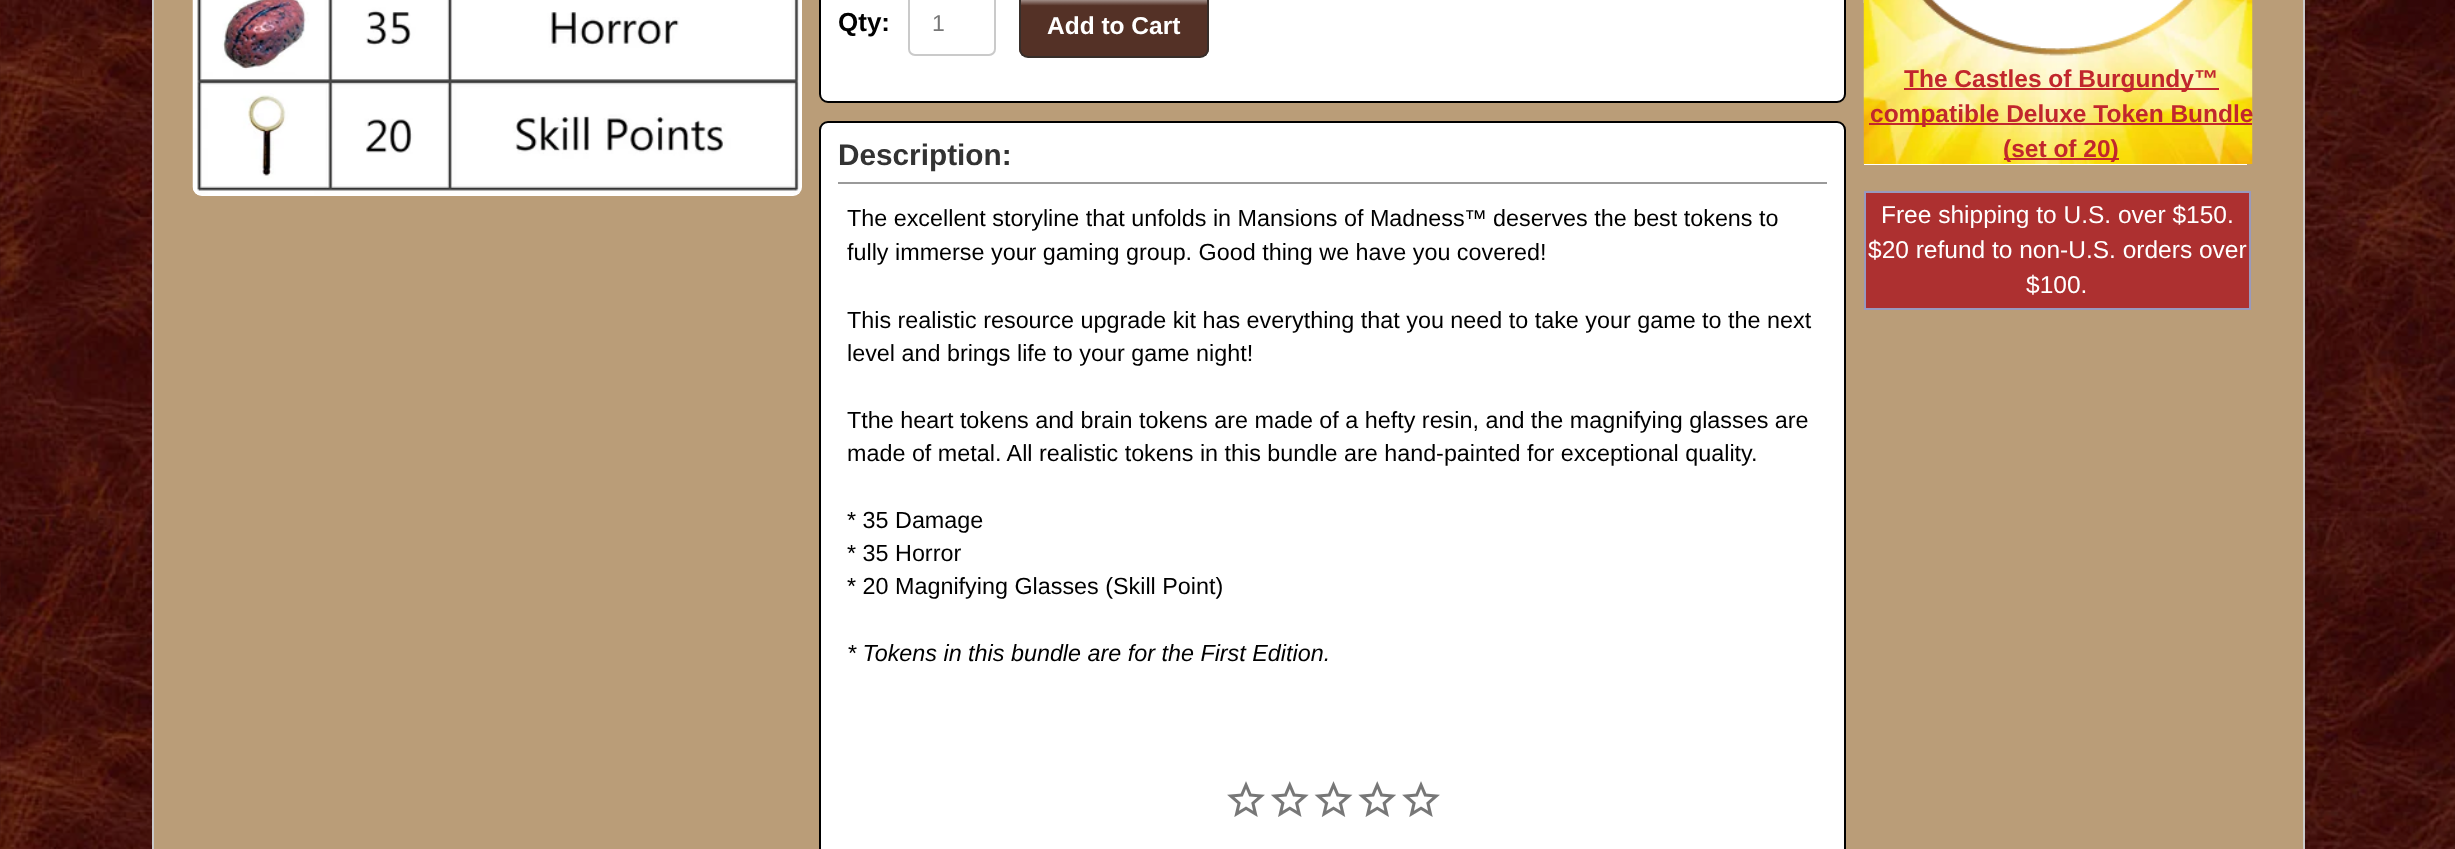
async function draw(canvas) {
  canvas.width = 2455
  canvas.height = 849
  const ctx = canvas.getContext('2d')
  ctx.miterLimit = 4
  ctx.fontKerning = 'normal'
  async function loadImage(src) {
    const img = new Image()
    img.src = src
    await img.decode()
    return img
  }
  let gradient

  ctx.fillStyle = '#fff'
  ctx.fillRect(0, 0, 2455, 849)
  ctx.drawImage(await loadImage('image0.png'), 0, 0, 2455, 849)
  ctx.fillStyle = '#ba9d78'
  ctx.fillRect(154, 0, 2149, 849)
  ctx.fillStyle = '#cacaca'
  ctx.fillRect(2303, 0, 2, 849)
  ctx.fillRect(152, 0, 2, 849)
  ctx.fillStyle = '#fff'
  ctx.beginPath()
  ctx.roundRect(193, -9, 609, 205, 9)
  ctx.fill()
  ctx.drawImage(await loadImage('image1.png'), 192, 0, 608, 196)
  ctx.beginPath()
  ctx.roundRect(820, -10, 1025, 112, 8)
  ctx.fill()
  ctx.strokeStyle = '#000'
  ctx.lineWidth = 2
  ctx.stroke()
  ctx.font = 'bold 26px Liberation Sans'
  ctx.fillStyle = '#000'
  ctx.fillText('Qty:', 838, 31)
  ctx.beginPath()
  ctx.roundRect(909, -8, 86, 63, 6)
  ctx.strokeStyle = '#cacaca'
  ctx.stroke()
  ctx.font = '23px Liberation Sans'
  ctx.fillStyle = '#777'
  ctx.fillText('1', 932, 31)
  ctx.save()
  ctx.beginPath()
  ctx.roundRect(1019, -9, 190, 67, 9)
  ctx.clip()
  gradient = ctx.createLinearGradient(1114, -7, 1114, 56)
  gradient.addColorStop(0, '#fff')
  gradient.addColorStop(0.2, '#543126')
  ctx.fillStyle = gradient
  ctx.fillRect(1019, 0, 190, 56)
  ctx.restore()
  ctx.beginPath()
  ctx.roundRect(1020, -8, 188, 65, 8)
  ctx.strokeStyle = '#372e2a'
  ctx.stroke()
  ctx.font = 'bold 24.5px Liberation Sans'
  ctx.fillStyle = '#fff'
  ctx.fillText('Add to Cart', 1047, 34)
  ctx.beginPath()
  ctx.roundRect(820, 122, 1025, 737, 8)
  ctx.fill()
  ctx.strokeStyle = '#000'
  ctx.stroke()
  ctx.fillStyle = '#9a9a9a'
  ctx.fillRect(838, 182, 989, 2)
  ctx.font = 'bold 29.75px Liberation Sans'
  ctx.fillStyle = '#333'
  ctx.fillText('Description:', 838, 165)
  ctx.font = '23.35px Liberation Sans'
  ctx.fillStyle = '#000'
  ctx.fillText('The excellent storyline that unfolds in Mansions of Madness', 847, 226)
  ctx.font = '23px Liberation Sans'
  ctx.fillText('™', 1464, 226)
  ctx.font = '23.35px Liberation Sans'
  ctx.fillText('deserves the best tokens to', 1493, 226)
  ctx.fillText('fully immerse your gaming group. Good thing we have you covered!', 847, 260)
  ctx.fillText('This realistic resource upgrade kit has everything that you need to take your game to the next', 847, 328)
  ctx.fillText('level and brings life to your game night!', 847, 361)
  ctx.fillText('Tthe heart tokens and brain tokens are made of a hefty resin, and the magnifying glasses are', 847, 428)
  ctx.fillText('made of metal. All realistic tokens in this bundle are hand-painted for exceptional quality.', 847, 461)
  ctx.fillText('* 35 Damage', 847, 528)
  ctx.fillText('* 35 Horror', 847, 561)
  ctx.fillText('* 20 Magnifying Glasses (Skill Point)', 847, 594)
  ctx.font = 'italic 23.35px Liberation Sans'
  ctx.fillText('* Tokens in this bundle are for the First Edition.', 847, 661)
  ctx.drawImage(await loadImage('image2.png'), 1227, 781, 38, 36)
  ctx.drawImage(await loadImage('image3.png'), 1271, 781, 38, 36)
  ctx.drawImage(await loadImage('image4.png'), 1314, 781, 39, 36)
  ctx.drawImage(await loadImage('image5.png'), 1358, 781, 38, 36)
  ctx.drawImage(await loadImage('image2.png'), 1402, 781, 38, 36)
  ctx.fillStyle = '#fff'
  ctx.fillRect(1864, 0, 383, 165)
  ctx.fillStyle = '#cbb69a'
  ctx.fillRect(1863, 0, 1, 3)
  ctx.drawImage(await loadImage('image6.png'), 1863, 0, 390, 164)
  ctx.fillStyle = '#c1272d'
  ctx.fillRect(1904, 88, 315, 2)
  ctx.font = 'bold 24.5px Liberation Sans'
  ctx.fillText('The Castles of Burgundy™', 1904, 87)
  ctx.fillRect(1869, 123, 383, 2)
  ctx.fillText('compatible Deluxe Token Bundle', 1870, 122)
  ctx.fillRect(2004, 158, 115, 2)
  ctx.fillText('(set of 20)', 2003, 157)
  ctx.fillStyle = '#ad3030'
  ctx.beginPath()
  ctx.rect(1865, 192, 385, 117)
  ctx.fill()
  ctx.strokeStyle = '#9999be'
  ctx.stroke()
  ctx.font = '24.5px Liberation Sans'
  ctx.fillStyle = '#fff'
  ctx.fillText('Free shipping to U.S. over $150.', 1881, 223)
  ctx.fillText('$20 refund to non-U.S. orders over', 1868, 258)
  ctx.fillText('$100.', 2026, 293)
}

draw(document.querySelector('canvas'))
